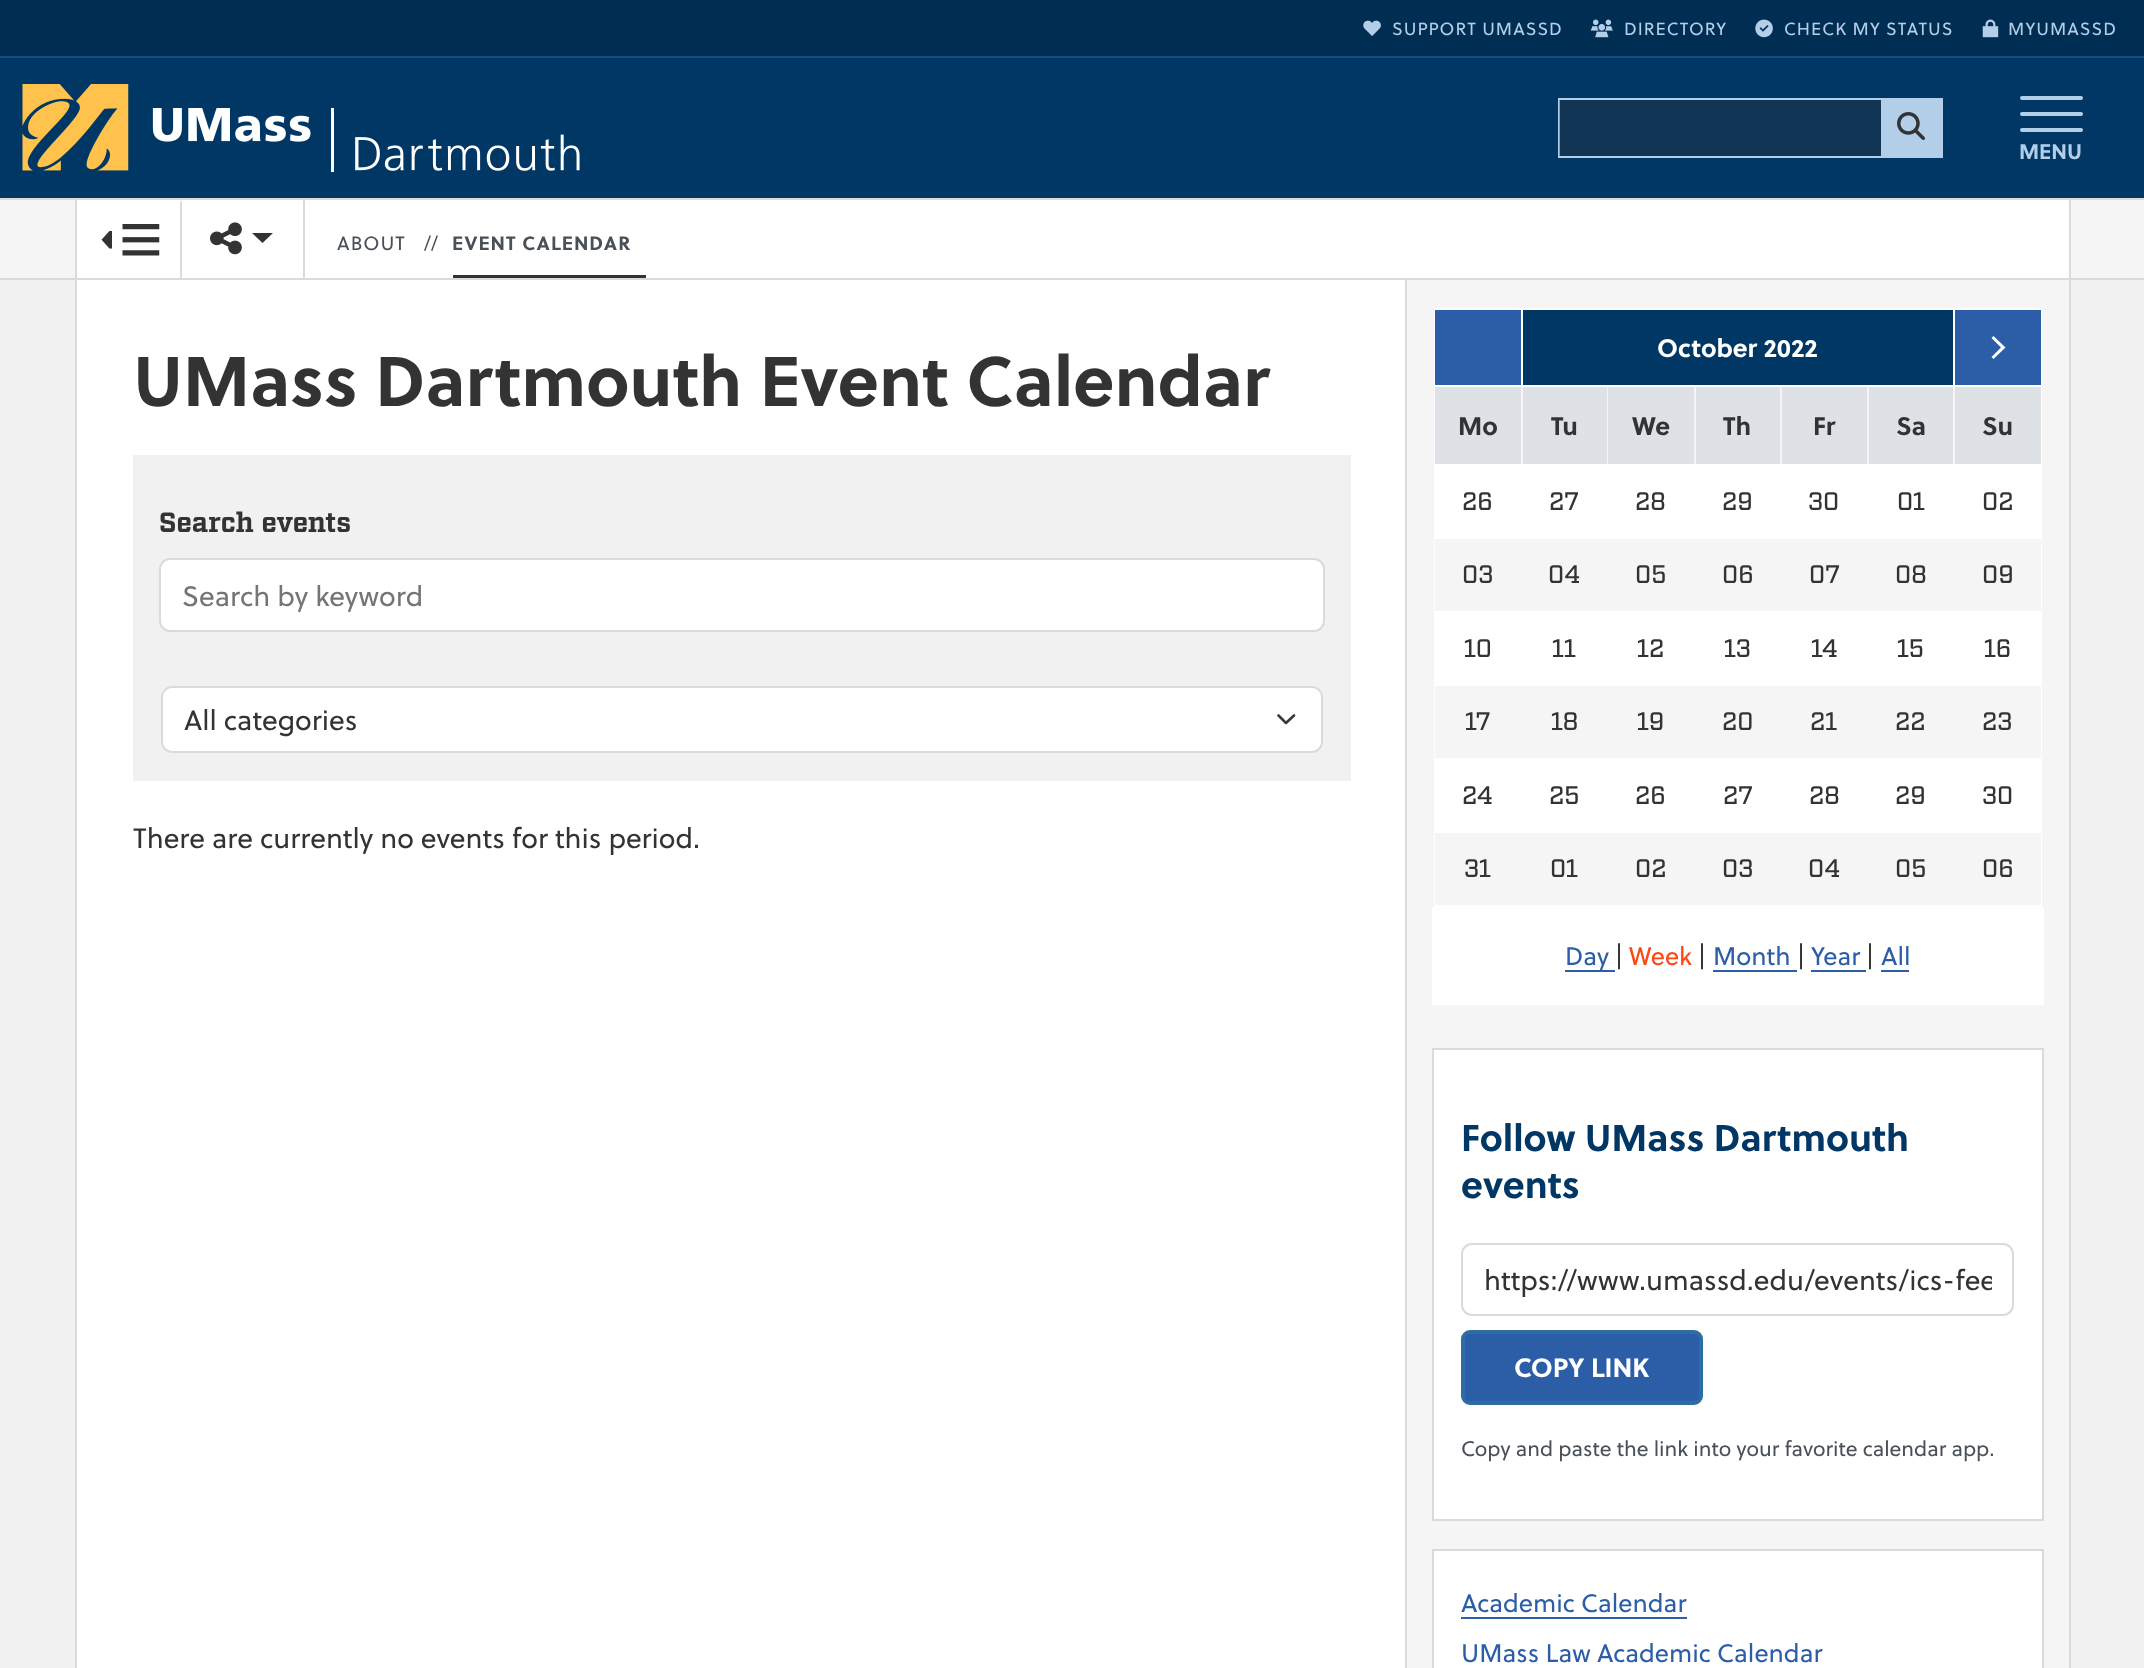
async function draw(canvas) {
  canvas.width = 2144
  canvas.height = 1668
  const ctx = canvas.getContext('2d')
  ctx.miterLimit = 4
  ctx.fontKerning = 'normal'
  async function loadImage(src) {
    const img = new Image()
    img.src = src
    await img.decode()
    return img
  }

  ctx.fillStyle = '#f5f5f5'
  ctx.fillRect(0, 0, 2144, 1668)
  ctx.fillStyle = '#003764'
  ctx.fillRect(0, 58, 2144, 140)
  ctx.fillStyle = '#002e53'
  ctx.fillRect(0, 0, 2144, 56)
  ctx.fillStyle = '#0f4f83'
  ctx.fillRect(0, 56, 2144, 2)
  ctx.drawImage(await loadImage('image0.png'), 1363, 20, 18, 16)
  ctx.letterSpacing = '1px'
  ctx.font = '17.6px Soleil'
  ctx.fillStyle = '#b3cee9'
  ctx.fillText('SUPPORT UMASSD', 1392, 35)
  ctx.drawImage(await loadImage('image1.png'), 1590, 19, 23, 19)
  ctx.fillText('DIRECTORY', 1624, 35)
  ctx.drawImage(await loadImage('image2.png'), 1755, 19, 18, 19)
  ctx.fillText('CHECK MY STATUS', 1784, 35)
  ctx.drawImage(await loadImage('image3.png'), 1982, 19, 17, 19)
  ctx.fillText('MYUMASSD', 2008, 35)
  ctx.drawImage(await loadImage('image4.png'), 22, 84, 558, 88)
  ctx.strokeStyle = '#b3cee9'
  ctx.lineWidth = 2
  ctx.strokeRect(1559, 99, 383, 58)
  ctx.fillStyle = '#33333354'
  ctx.fillRect(1559, 100, 322, 56)
  ctx.fillStyle = '#b3cee9'
  ctx.fillRect(1881, 100, 60, 56)
  ctx.drawImage(await loadImage('image5.png'), 1897, 112, 28, 28)
  ctx.beginPath()
  ctx.roundRect(2020, 96, 63, 4, 2)
  ctx.fill()
  ctx.beginPath()
  ctx.roundRect(2020, 112, 63, 4, 2)
  ctx.fill()
  ctx.beginPath()
  ctx.roundRect(2020, 128, 63, 4, 2)
  ctx.fill()
  ctx.letterSpacing = '0px'
  ctx.font = 'bold 21px Soleil'
  ctx.fillText('MENU', 2019, 159)
  ctx.fillStyle = '#dadada'
  ctx.fillRect(0, 198, 2144, 2)
  ctx.fillRect(0, 278, 2144, 2)
  ctx.fillStyle = '#fff'
  ctx.fillRect(77, 200, 1992, 78)
  ctx.fillStyle = '#dadada'
  ctx.fillRect(2069, 200, 2, 78)
  ctx.fillRect(75, 200, 2, 78)
  ctx.beginPath()
  ctx.moveTo(182, 200)
  ctx.lineTo(182, 278)
  ctx.lineTo(180, 278)
  ctx.lineTo(180, 203)
  ctx.closePath()
  ctx.fill()
  ctx.drawImage(await loadImage('image6.png'), 101, 231, 11, 18)
  ctx.drawImage(await loadImage('image7.png'), 122, 224, 38, 32)
  ctx.fillRect(303, 200, 2, 78)
  ctx.drawImage(await loadImage('image8.png'), 210, 222, 32, 33)
  ctx.fillStyle = '#333'
  ctx.beginPath()
  ctx.moveTo(252, 233)
  ctx.lineTo(273, 233)
  ctx.lineTo(262.5, 243)
  ctx.closePath()
  ctx.fill()
  ctx.letterSpacing = '1px'
  ctx.font = '19.25px Soleil'
  ctx.fillStyle = '#495057'
  ctx.fillText('ABOUT', 337, 250)
  ctx.fillText('//', 424, 250)
  ctx.font = 'bold 19.25px Soleil'
  ctx.fillText('EVENT CALENDAR', 452, 250)
  ctx.fillStyle = '#333'
  ctx.fillRect(453, 275, 193, 3)
  ctx.fillStyle = '#f1f1f1'
  ctx.fillRect(0, 280, 2144, 1388)
  ctx.fillStyle = '#dadada'
  ctx.fillRect(2069, 280, 2, 1388)
  ctx.fillRect(75, 280, 2, 1388)
  ctx.fillStyle = '#fff'
  ctx.fillRect(77, 280, 1328, 1388)
  ctx.letterSpacing = '0px'
  ctx.font = 'bold 70px Soleil'
  ctx.fillStyle = '#333'
  ctx.fillText('UMass Dartmouth Event Calendar', 133, 406)
  ctx.fillStyle = '#f1f1f1'
  ctx.fillRect(133, 455, 1218, 326)
  ctx.font = 'bold 28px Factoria'
  ctx.fillStyle = '#333'
  ctx.fillText('Search events', 159, 532)
  ctx.fillStyle = '#fff'
  ctx.beginPath()
  ctx.roundRect(160, 559, 1164, 72, 10)
  ctx.fill()
  ctx.strokeStyle = '#dadada'
  ctx.stroke()
  ctx.font = '28px Soleil'
  ctx.fillStyle = '#757575'
  ctx.fillText('Search by keyword', 182, 606)
  ctx.fillStyle = '#fff'
  ctx.beginPath()
  ctx.roundRect(161, 686, 1162, 67, 11)
  ctx.fill()
  ctx.beginPath()
  ctx.moveTo(1278.5, 715.5)
  ctx.lineTo(1286, 723)
  ctx.lineTo(1294, 715.5)
  ctx.strokeStyle = '#343a40'
  ctx.lineWidth = 2.6
  ctx.lineCap = 'round'
  ctx.lineJoin = 'round'
  ctx.stroke()
  ctx.beginPath()
  ctx.roundRect(162, 687, 1160, 65, 10)
  ctx.strokeStyle = '#dadada'
  ctx.lineWidth = 2
  ctx.lineJoin = 'miter'
  ctx.stroke()
  ctx.fillStyle = '#333'
  ctx.fillText('All categories', 184, 730)
  ctx.fillText('There are currently no events for this period.', 133, 848)
  ctx.fillStyle = '#f5f5f5'
  ctx.fillRect(1407, 280, 662, 1388)
  ctx.fillStyle = '#dadada'
  ctx.fillRect(1405, 280, 2, 1388)
  ctx.fillStyle = '#fff'
  ctx.fillRect(1434, 308, 608, 599)
  ctx.fillStyle = '#2c5da7'
  ctx.fillRect(1435, 310, 86, 75)
  ctx.fillStyle = '#003764'
  ctx.fillRect(1523, 310, 430, 75)
  ctx.font = 'bold 25.25px Soleil'
  ctx.fillStyle = '#fff'
  ctx.fillText('October 2022', 1657, 357)
  ctx.fillStyle = '#2c5da7'
  ctx.fillRect(1955, 310, 86, 75)
  ctx.fillStyle = '#fff'
  ctx.beginPath()
  ctx.moveTo(2005.5, 347.5)
  ctx.lineTo(1993.5, 359)
  ctx.lineTo(1991.5, 357)
  ctx.lineTo(2001, 347.5)
  ctx.lineTo(1991.5, 338)
  ctx.lineTo(1993.5, 336)
  ctx.closePath()
  ctx.fill()
  ctx.fillStyle = '#f5f5f5'
  ctx.fillRect(1521, 387, 434, 77)
  ctx.fillStyle = '#dee2e6'
  ctx.fillRect(1435, 387, 86, 77)
  ctx.fillStyle = '#333'
  ctx.fillText('Mo', 1458, 435)
  ctx.fillStyle = '#dee2e6'
  ctx.fillRect(1523, 387, 84, 77)
  ctx.fillStyle = '#333'
  ctx.fillText('Tu', 1551, 435)
  ctx.fillStyle = '#dee2e6'
  ctx.fillRect(1608, 387, 86, 77)
  ctx.fillStyle = '#333'
  ctx.fillText('We', 1632, 435)
  ctx.fillStyle = '#dee2e6'
  ctx.fillRect(1696, 387, 84, 77)
  ctx.fillStyle = '#333'
  ctx.fillText('Th', 1723, 435)
  ctx.fillStyle = '#dee2e6'
  ctx.fillRect(1782, 387, 85, 77)
  ctx.fillStyle = '#333'
  ctx.fillText('Fr', 1813, 435)
  ctx.fillStyle = '#dee2e6'
  ctx.fillRect(1869, 387, 84, 77)
  ctx.fillStyle = '#333'
  ctx.fillText('Sa', 1896, 435)
  ctx.fillStyle = '#dee2e6'
  ctx.fillRect(1955, 387, 86, 77)
  ctx.fillStyle = '#333'
  ctx.fillText('Su', 1982, 435)
  ctx.font = '500 25.25px Factoria'
  ctx.fillText('26', 1462, 510)
  ctx.fillText('27', 1549, 510)
  ctx.fillText('28', 1635, 510)
  ctx.fillText('29', 1722, 510)
  ctx.fillText('30', 1808, 510)
  ctx.fillText('01', 1897, 510)
  ctx.fillText('02', 1982, 510)
  ctx.fillStyle = '#f5f5f5'
  ctx.fillRect(1435, 539, 606, 72)
  ctx.fillStyle = '#333'
  ctx.fillText('03', 1462, 583)
  ctx.fillText('04', 1548, 583)
  ctx.fillText('05', 1635, 583)
  ctx.fillText('06', 1722, 583)
  ctx.fillText('07', 1809, 583)
  ctx.fillText('08', 1895, 583)
  ctx.fillText('09', 1982, 583)
  ctx.fillText('10', 1464, 657)
  ctx.fillText('11', 1552, 657)
  ctx.fillText('12', 1637, 657)
  ctx.fillText('13', 1724, 657)
  ctx.fillText('14', 1811, 657)
  ctx.fillText('15', 1897, 657)
  ctx.fillText('16', 1984, 657)
  ctx.fillStyle = '#f5f5f5'
  ctx.fillRect(1435, 686, 606, 72)
  ctx.fillStyle = '#333'
  ctx.fillText('17', 1465, 730)
  ctx.fillText('18', 1551, 730)
  ctx.fillText('19', 1637, 730)
  ctx.fillText('20', 1722, 730)
  ctx.fillText('21', 1810, 730)
  ctx.fillText('22', 1895, 730)
  ctx.fillText('23', 1982, 730)
  ctx.fillText('24', 1462, 804)
  ctx.fillText('25', 1549, 804)
  ctx.fillText('26', 1635, 804)
  ctx.fillText('27', 1723, 804)
  ctx.fillText('28', 1809, 804)
  ctx.fillText('29', 1895, 804)
  ctx.fillText('30', 1982, 804)
  ctx.fillStyle = '#f5f5f5'
  ctx.fillRect(1435, 833, 606, 72)
  ctx.fillStyle = '#333'
  ctx.fillText('31', 1464, 877)
  ctx.fillText('01', 1550, 877)
  ctx.fillText('02', 1635, 877)
  ctx.fillText('03', 1722, 877)
  ctx.fillText('04', 1808, 877)
  ctx.fillText('05', 1895, 877)
  ctx.fillText('06', 1982, 877)
  ctx.fillStyle = '#fff'
  ctx.fillRect(1432, 907, 612, 98)
  ctx.fillStyle = '#2c5da7'
  ctx.fillRect(1565, 970, 50, 2)
  ctx.font = '25.25px Soleil'
  ctx.fillText('Day', 1565, 965)
  ctx.fillStyle = '#333'
  ctx.fillText('|', 1615, 965)
  ctx.fillStyle = '#ff4613'
  ctx.fillText('Week', 1629, 965)
  ctx.fillStyle = '#333'
  ctx.fillText('|', 1698, 965)
  ctx.fillStyle = '#2c5da7'
  ctx.fillText('Month', 1713, 965)
  ctx.fillRect(1713, 970, 84, 2)
  ctx.fillStyle = '#333'
  ctx.fillText('|', 1797, 965)
  ctx.fillStyle = '#2c5da7'
  ctx.fillText('Year', 1811, 965)
  ctx.fillRect(1811, 970, 55, 2)
  ctx.fillStyle = '#333'
  ctx.fillText('|', 1866, 965)
  ctx.fillStyle = '#2c5da7'
  ctx.fillText('All', 1881, 965)
  ctx.fillRect(1881, 970, 28, 2)
  ctx.fillStyle = '#fff'
  ctx.beginPath()
  ctx.rect(1433, 1049, 610, 471)
  ctx.fill()
  ctx.stroke()
  ctx.font = 'bold 37.25px Soleil'
  ctx.fillStyle = '#003764'
  ctx.fillText('Follow UMass Dartmouth', 1461, 1151)
  ctx.fillText('events', 1461, 1198)
  ctx.beginPath()
  ctx.roundRect(1462, 1244, 551, 71, 10)
  ctx.stroke()
  ctx.save()
  ctx.beginPath()
  ctx.rect(1484, 1258, 508, 42)
  ctx.clip()
  ctx.font = '28px Soleil'
  ctx.fillStyle = '#333'
  ctx.fillText('https://www.umassd.edu/events/ics-fee', 1484, 1290)
  ctx.restore()
  ctx.fillStyle = '#2c5da7'
  ctx.beginPath()
  ctx.roundRect(1463, 1332, 238, 71, 7)
  ctx.fill()
  ctx.strokeStyle = '#2e6da4'
  ctx.lineWidth = 4
  ctx.stroke()
  ctx.font = 'bold 26.5px Soleil'
  ctx.fillStyle = '#fff'
  ctx.fillText('COPY LINK', 1514, 1377)
  ctx.font = '21px Soleil'
  ctx.fillStyle = '#495057'
  ctx.fillText('Copy and paste the link into your favorite calendar app.', 1461, 1456)
  ctx.fillStyle = '#fff'
  ctx.beginPath()
  ctx.rect(1433, 1550, 610, 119)
  ctx.fill()
  ctx.strokeStyle = '#dadada'
  ctx.lineWidth = 2
  ctx.stroke()
  ctx.font = '25.25px Soleil'
  ctx.fillStyle = '#2c5da7'
  ctx.fillText('Academic Calendar', 1461, 1612)
  ctx.fillRect(1461, 1617, 226, 2)
  ctx.fillText('UMass Law Academic Calendar', 1461, 1662)
}

draw(document.querySelector('canvas'))
